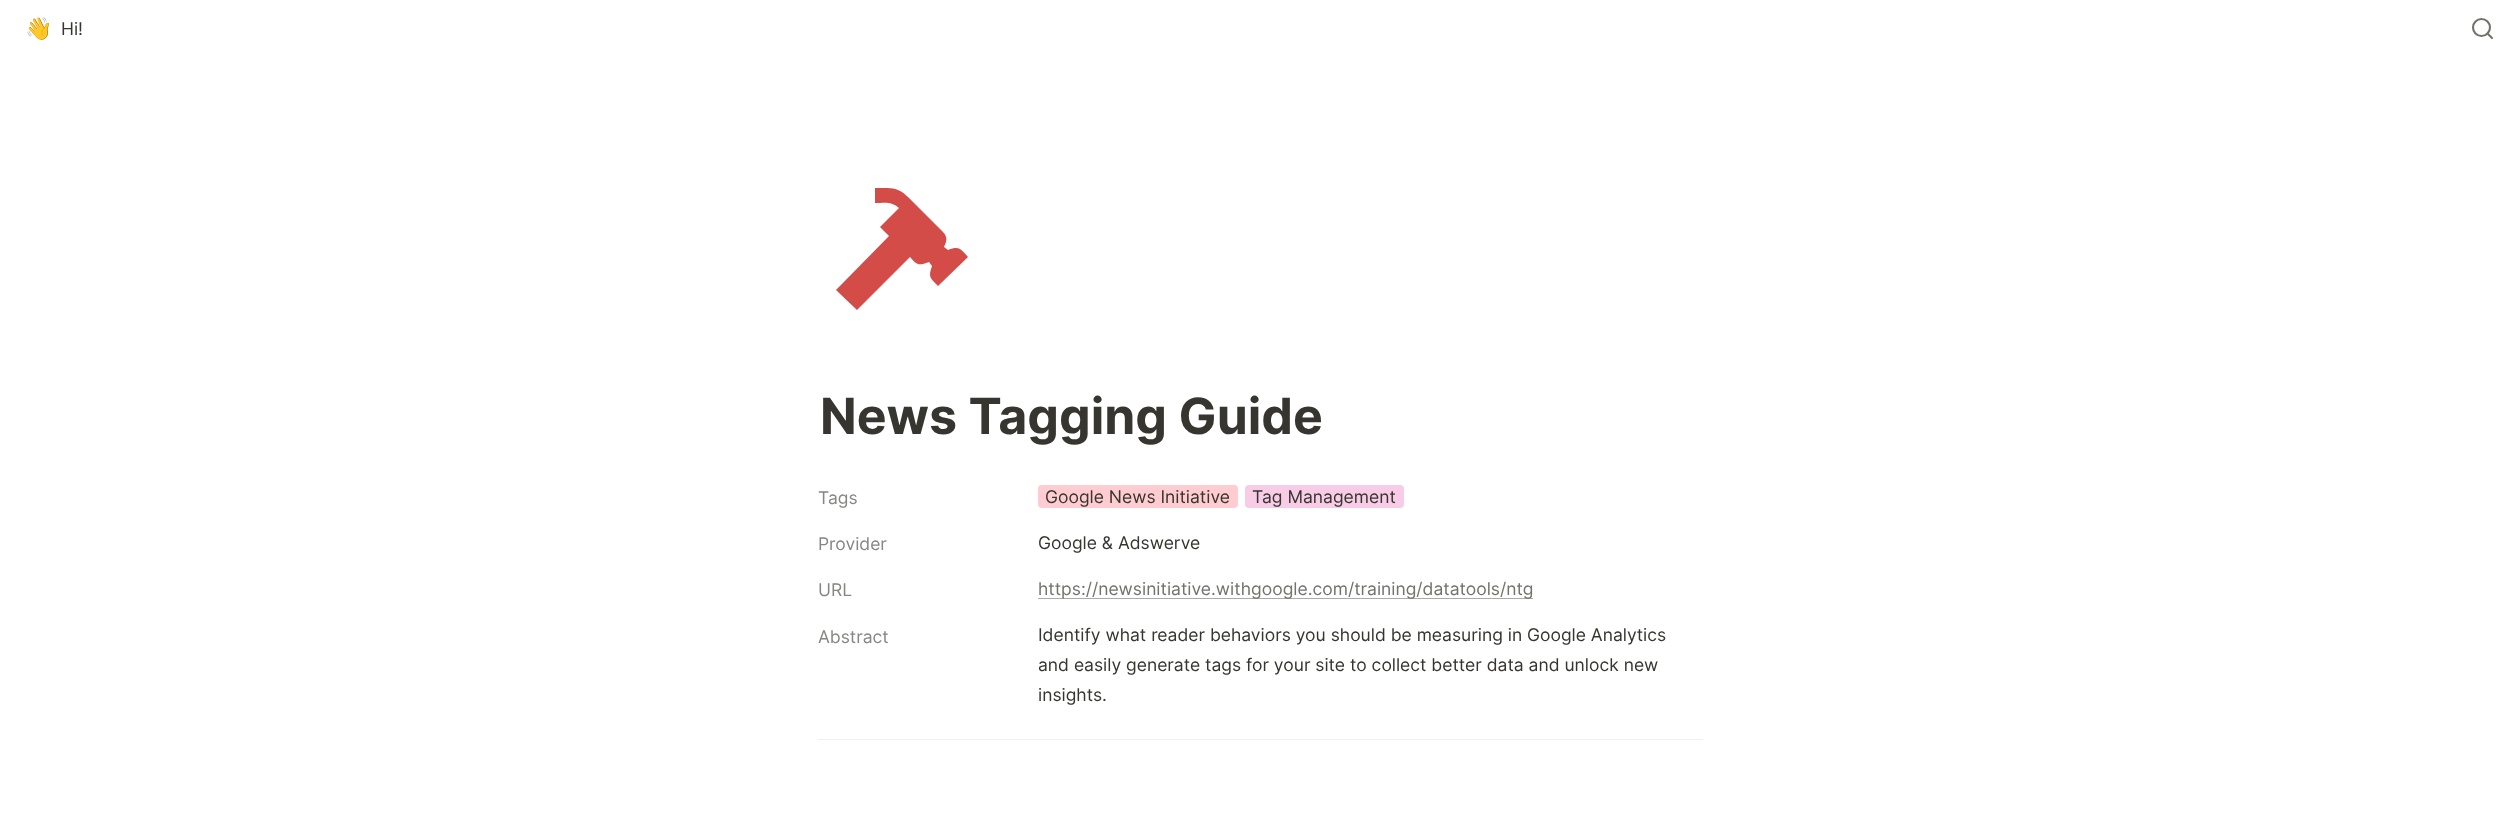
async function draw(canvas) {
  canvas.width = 2519
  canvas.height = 831
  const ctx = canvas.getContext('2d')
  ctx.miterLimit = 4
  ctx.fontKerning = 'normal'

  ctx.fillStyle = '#fff'
  ctx.fillRect(0, 0, 2519, 831)
  ctx.font = '22px Noto Color Emoji'
  ctx.fillStyle = '#37352f'
  ctx.fillText('👋', 25, 36)
  ctx.font = '17.5px Inter'
  ctx.fillText('Hi!', 61, 35)
  ctx.beginPath()
  ctx.arc(2481.5, 27.5, 8.5, 0, 2 * Math.PI)
  ctx.strokeStyle = '#73726d'
  ctx.lineWidth = 2.1
  ctx.stroke()
  ctx.beginPath()
  ctx.moveTo(2492, 38)
  ctx.lineTo(2487.5, 33.5)
  ctx.lineCap = 'round'
  ctx.lineJoin = 'round'
  ctx.stroke()
  ctx.fillStyle = '#d44c47'
  ctx.beginPath()
  ctx.moveTo(968, 257)
  ctx.lineTo(938, 286)
  ctx.bezierCurveTo(930, 278, 928, 277, 932, 266)
  ctx.lineTo(929, 262)
  ctx.bezierCurveTo(918, 266, 917, 265, 910, 257)
  ctx.lineTo(857, 310)
  ctx.lineTo(836, 290)
  ctx.lineTo(889, 236)
  ctx.lineTo(880, 227)
  ctx.lineTo(899, 208)
  ctx.bezierCurveTo(891, 201, 885, 203, 875, 203)
  ctx.lineTo(875, 188)
  ctx.lineTo(887, 188)
  ctx.bezierCurveTo(896, 188, 902, 191, 908, 197)
  ctx.lineTo(943, 232)
  ctx.bezierCurveTo(946, 235, 947, 238, 946, 242)
  ctx.lineTo(944, 247)
  ctx.lineTo(948, 250)
  ctx.bezierCurveTo(959, 246, 960, 248, 968, 257)
  ctx.closePath()
  ctx.fill()
  ctx.font = 'bold 50px Inter'
  ctx.fillStyle = '#37352f'
  ctx.fillText('News Tagging Guide', 820, 434)
  ctx.font = '17.5px Inter'
  ctx.fillStyle = '#878682'
  ctx.fillText('Tags', 818, 504)
  ctx.fillStyle = '#ffccd1'
  ctx.beginPath()
  ctx.roundRect(1038, 485, 200, 23, 4)
  ctx.fill()
  ctx.fillStyle = '#37352f'
  ctx.fillText('Google News Initiative', 1045, 503)
  ctx.fillStyle = '#f8cce6'
  ctx.beginPath()
  ctx.roundRect(1245, 485, 159, 23, 4)
  ctx.fill()
  ctx.fillStyle = '#37352f'
  ctx.fillText('Tag Management', 1252, 503)
  ctx.fillStyle = '#878682'
  ctx.fillText('Provider', 818, 550)
  ctx.fillStyle = '#37352f'
  ctx.fillText('Google & Adswerve', 1038, 549)
  ctx.fillStyle = '#878682'
  ctx.fillText('URL', 818, 596)
  ctx.fillStyle = '#abaaa7'
  ctx.fillRect(1038, 598, 495, 1)
  ctx.fillStyle = '#73726d'
  ctx.fillText('https://newsinitiative.withgoogle.com/training/datatools/ntg', 1038, 595)
  ctx.fillStyle = '#878682'
  ctx.fillText('Abstract', 818, 643)
  ctx.fillStyle = '#37352f'
  ctx.fillText('Identify what reader behaviors you should be measuring in Google Analytics', 1038, 641)
  ctx.fillText('and easily generate tags for your site to collect better data and unlock new', 1038, 671)
  ctx.fillText('insights.', 1038, 701)
  ctx.fillStyle = '#eff0f1'
  ctx.fillRect(818, 739, 885, 1)
}

draw(document.querySelector('canvas'))
